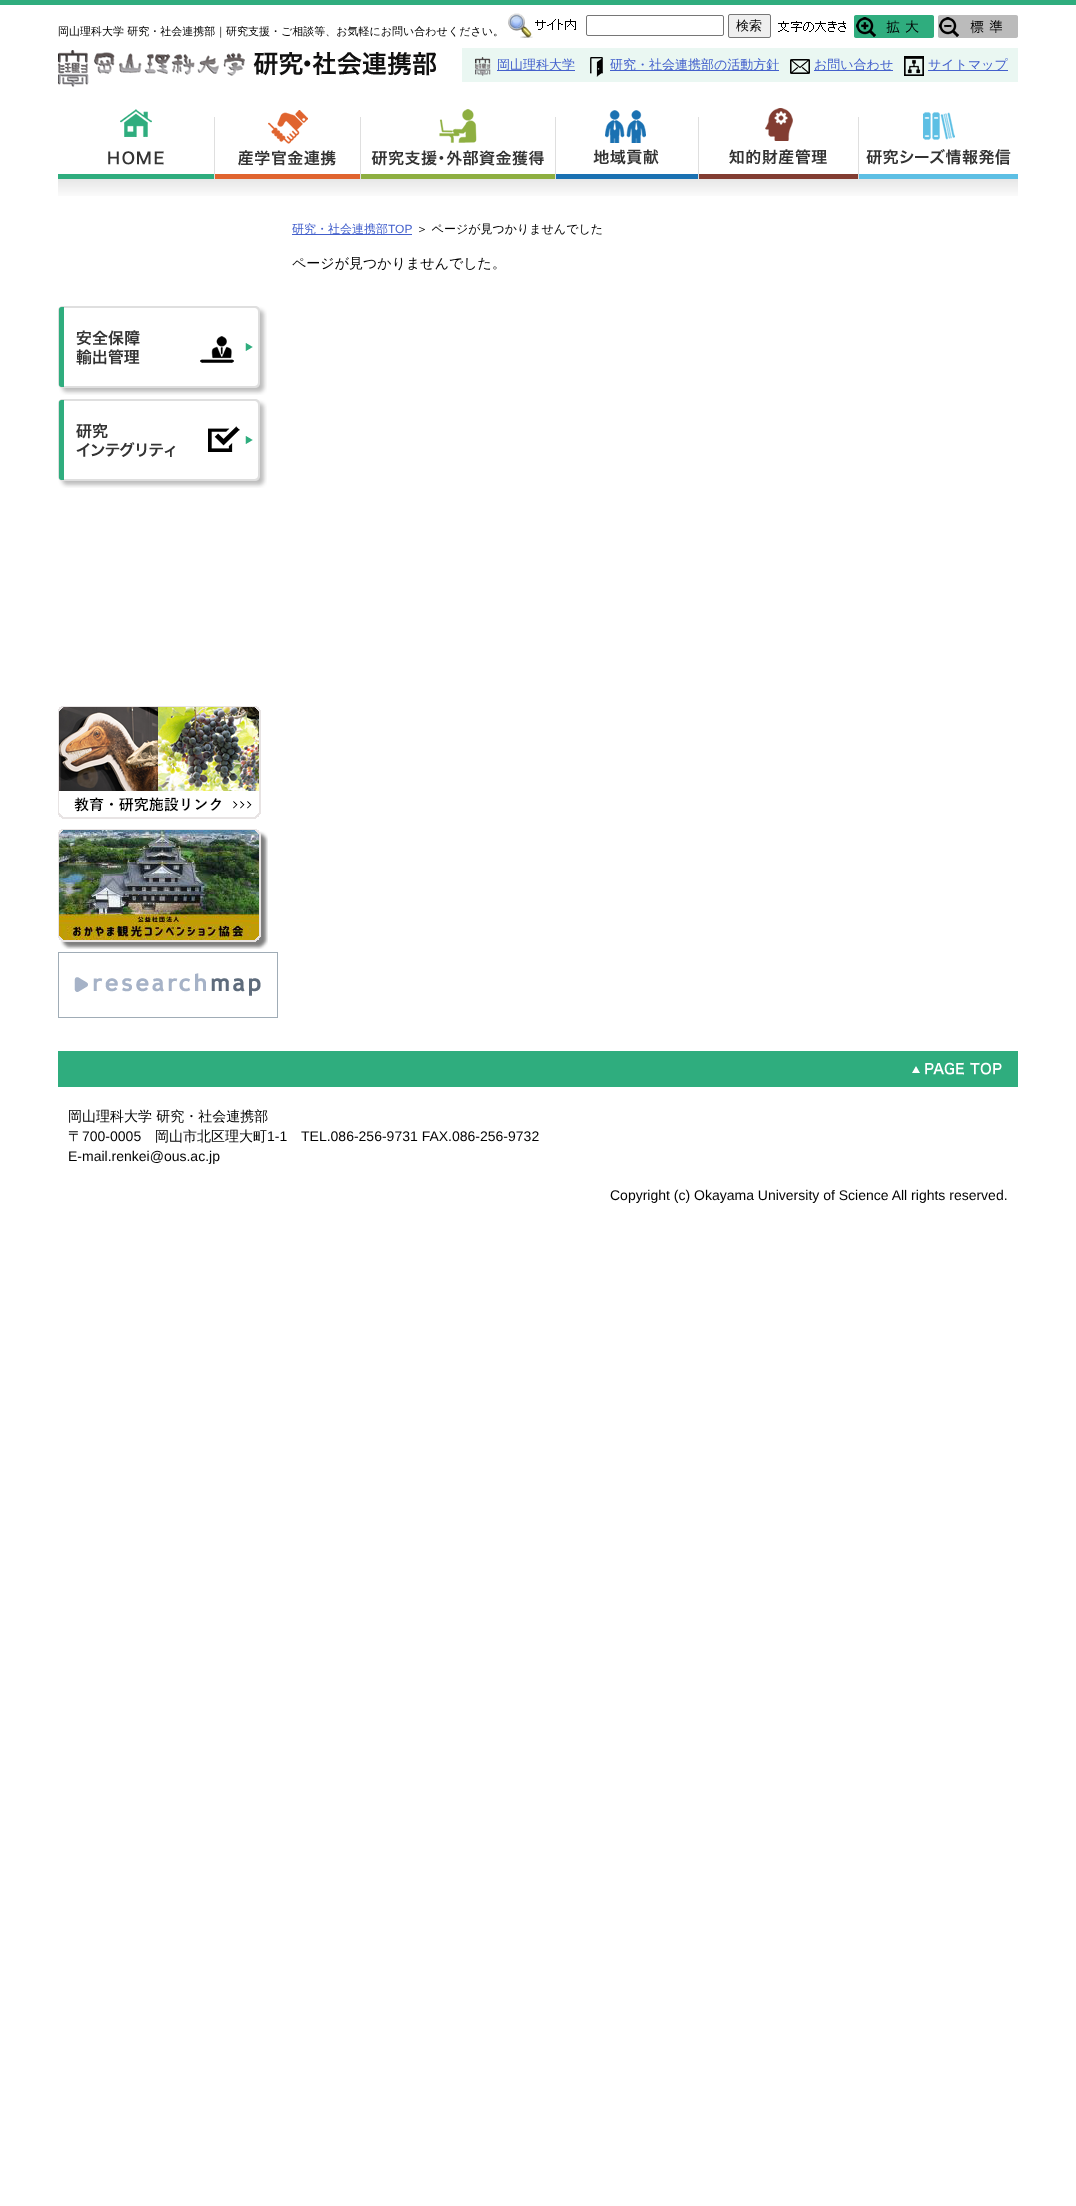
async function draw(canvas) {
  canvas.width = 1076
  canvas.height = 2206
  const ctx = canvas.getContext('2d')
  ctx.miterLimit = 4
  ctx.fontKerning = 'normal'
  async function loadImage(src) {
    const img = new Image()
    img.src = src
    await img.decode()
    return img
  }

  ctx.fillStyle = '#fff'
  ctx.fillRect(0, 0, 1076, 2206)
  ctx.fillStyle = '#2fad7e'
  ctx.fillRect(0, 0, 1076, 5)
  ctx.font = '500 11px WenQuanYi Zen Hei'
  ctx.fillStyle = '#000'
  ctx.fillText('岡山理科大学 研究・社会連携部｜研究支援・ご相談等、お気軽にお問い合わせください。', 58, 35)
  ctx.drawImage(await loadImage('image0.png'), 508, 13, 68, 25)
  ctx.beginPath()
  ctx.roundRect(586.5, 15.5, 137, 20, 1.5)
  ctx.strokeStyle = '#767676'
  ctx.stroke()
  ctx.fillStyle = '#efefef'
  ctx.beginPath()
  ctx.roundRect(728.5, 14.5, 42, 23, 1.5)
  ctx.fill()
  ctx.stroke()
  ctx.font = '500 13px WenQuanYi Zen Hei'
  ctx.fillStyle = '#000'
  ctx.fillText('検索', 736, 30)
  ctx.drawImage(await loadImage('image1.png'), 778, 21, 68, 11)
  ctx.drawImage(await loadImage('image2.png'), 854, 15, 80, 23)
  ctx.drawImage(await loadImage('image3.png'), 938, 15, 80, 23)
  ctx.drawImage(await loadImage('image4.png'), 58, 50, 378, 37)
  ctx.fillStyle = '#eaf7f2'
  ctx.fillRect(462, 48, 556, 34)
  ctx.drawImage(await loadImage('image5.png'), 475, 57, 16, 19)
  ctx.fillStyle = '#4360cc'
  ctx.fillRect(497, 70, 78, 1)
  ctx.fillText('岡山理科大学', 497, 69)
  ctx.drawImage(await loadImage('image6.png'), 590, 57, 13, 20)
  ctx.fillRect(610, 70, 169, 1)
  ctx.fillText('研究・社会連携部の活動方針', 610, 69)
  ctx.drawImage(await loadImage('image7.png'), 790, 59, 20, 15)
  ctx.fillRect(814, 70, 79, 1)
  ctx.fillText('お問い合わせ', 814, 69)
  ctx.drawImage(await loadImage('image8.png'), 904, 56, 20, 20)
  ctx.fillRect(928, 70, 80, 1)
  ctx.fillText('サイトマップ', 928, 69)
  ctx.drawImage(await loadImage('image9.png'), 58, 108, 960, 88)
  ctx.fillRect(292, 234, 120, 1)
  ctx.font = '500 12px WenQuanYi Zen Hei'
  ctx.fillText('研究・社会連携部', 292, 233)
  ctx.font = '12px Liberation Sans'
  ctx.fillText('TOP', 388, 233)
  ctx.font = '500 12px WenQuanYi Zen Hei'
  ctx.fillStyle = '#000'
  ctx.fillText('＞ ページが見つかりませんでした', 416, 233)
  ctx.font = '500 14px WenQuanYi Zen Hei'
  ctx.fillText('ページが見つかりませんでした。', 292, 268)
  ctx.drawImage(await loadImage('image10.png'), 58, 306, 209, 89)
  ctx.drawImage(await loadImage('image11.png'), 58, 399, 209, 89)
  ctx.drawImage(await loadImage('image12.png'), 58, 706, 203, 113)
  ctx.drawImage(await loadImage('image13.png'), 58, 829, 210, 120)
  ctx.drawImage(await loadImage('image14.png'), 58, 952, 220, 66)
  ctx.fillStyle = '#2fad7e'
  ctx.fillRect(58, 1051, 960, 36)
  ctx.drawImage(await loadImage('image15.png'), 912, 1062, 90, 13)
  ctx.fillStyle = '#000'
  ctx.fillText('岡山理科大学 研究・社会連携部', 68, 1121)
  ctx.fillText('〒', 68, 1141)
  ctx.font = '14px Liberation Sans'
  ctx.fillText('700-0005', 82, 1141)
  ctx.font = '500 14px WenQuanYi Zen Hei'
  ctx.fillText('岡山市北区理大町', 155, 1141)
  ctx.font = '14px Liberation Sans'
  ctx.fillText('1-1', 267, 1141)
  ctx.fillText('TEL.086-256-9731 FAX.086-256-9732', 301, 1141)
  ctx.fillText('E-mail.renkei@ous.ac.jp', 68, 1161)
  ctx.fillText('Copyright (c) Okayama University of Science All rights reserved.', 610, 1200)
}

draw(document.querySelector('canvas'))
